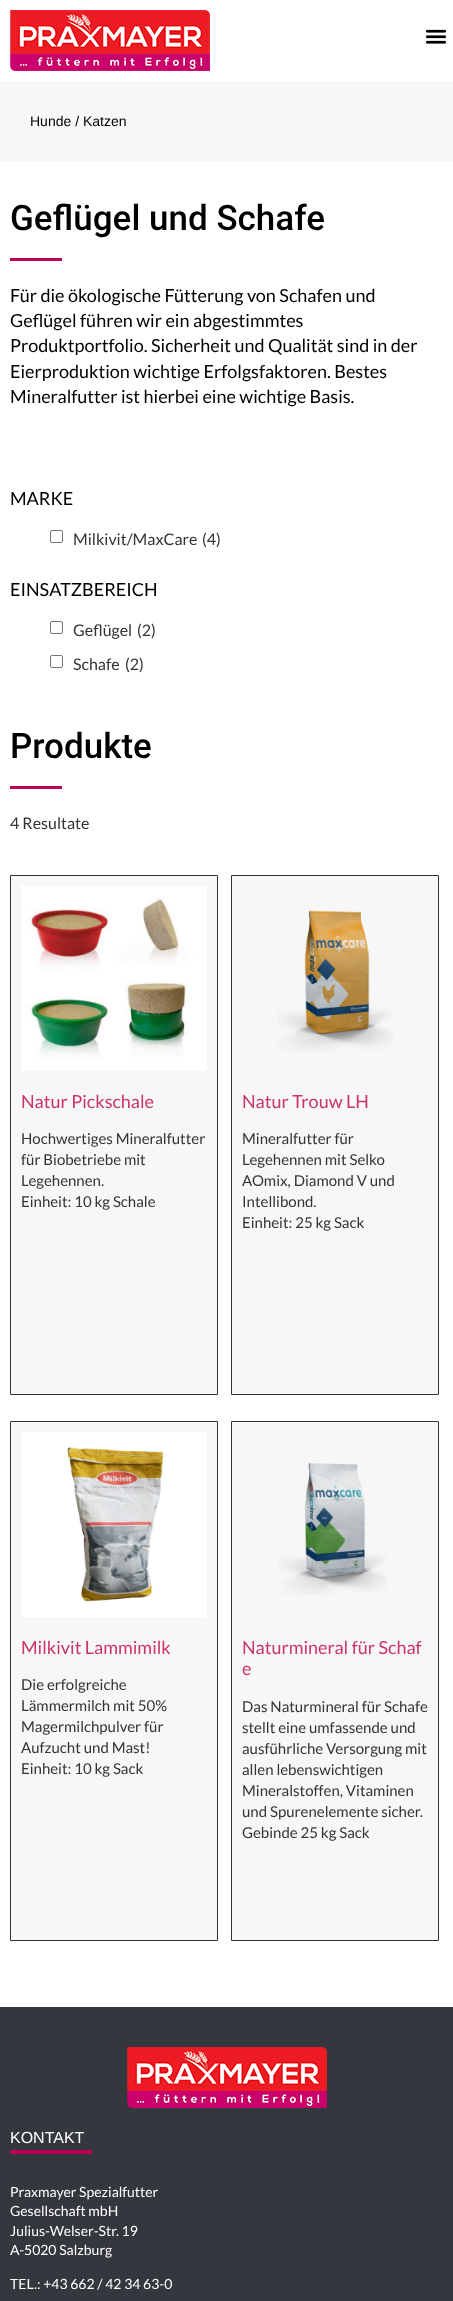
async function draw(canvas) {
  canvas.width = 453
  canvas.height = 2301
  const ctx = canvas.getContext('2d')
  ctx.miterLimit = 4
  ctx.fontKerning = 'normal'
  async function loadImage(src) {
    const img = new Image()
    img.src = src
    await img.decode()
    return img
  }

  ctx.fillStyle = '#fff'
  ctx.fillRect(0, 0, 453, 2301)
  ctx.drawImage(await loadImage('image0.png'), 10, 10, 200, 61)
  ctx.drawImage(await loadImage('image1.png'), 425, 29, 22, 15)
  ctx.fillStyle = '#f7f7f7'
  ctx.fillRect(0, 81, 453, 80)
  ctx.font = '14px Liberation Sans'
  ctx.fillStyle = '#000'
  ctx.fillText('Hunde / Katzen', 30, 126)
  ctx.font = '500 35px Roboto'
  ctx.fillText('Geflügel und Schafe', 10, 230)
  ctx.fillStyle = '#bc0254'
  ctx.fillRect(10, 258, 52, 3)
  ctx.font = '18px Lato'
  ctx.fillStyle = '#000'
  ctx.fillText('Für die ökologische Fütterung von Schafen und', 10, 302)
  ctx.fillText('Geflügel führen wir ein abgestimmtes', 10, 327)
  ctx.fillText('Produktportfolio. Sicherheit und Qualität sind in der', 10, 352)
  ctx.fillText('Eierproduktion wichtige Erfolgsfaktoren. Bestes', 10, 378)
  ctx.fillText('Mineralfutter ist hierbei eine wichtige Basis.', 10, 403)
  ctx.fillText('MARKE', 10, 505)
  ctx.beginPath()
  ctx.roundRect(50.5, 530.5, 12, 12, 1.5)
  ctx.strokeStyle = '#767676'
  ctx.stroke()
  ctx.font = '16px Lato'
  ctx.fillStyle = '#333'
  ctx.fillText('Milkivit/MaxCare', 73, 545)
  ctx.fillText('(4)', 202, 545)
  ctx.font = '18px Lato'
  ctx.fillStyle = '#000'
  ctx.fillText('EINSATZBEREICH', 10, 596)
  ctx.beginPath()
  ctx.roundRect(50.5, 621.5, 12, 12, 1.5)
  ctx.stroke()
  ctx.font = '16px Lato'
  ctx.fillStyle = '#333'
  ctx.fillText('Geflügel', 73, 636)
  ctx.fillText('(2)', 137, 636)
  ctx.beginPath()
  ctx.roundRect(50.5, 655.5, 12, 12, 1.5)
  ctx.stroke()
  ctx.fillText('Schafe', 73, 670)
  ctx.fillText('(2)', 125, 670)
  ctx.font = '500 35px Roboto'
  ctx.fillStyle = '#000'
  ctx.fillText('Produkte', 10, 758)
  ctx.fillStyle = '#bc0254'
  ctx.fillRect(10, 786, 52, 3)
  ctx.font = '16px Lato'
  ctx.fillStyle = '#333'
  ctx.fillText('4 Resultate', 10, 829)
  ctx.fillStyle = '#f7f7f7'
  ctx.beginPath()
  ctx.rect(10.5, 875.5, 207, 519)
  ctx.fill()
  ctx.strokeStyle = '#333'
  ctx.stroke()
  ctx.drawImage(await loadImage('image2.png'), 21, 886, 186, 185)
  ctx.font = '18px Lato'
  ctx.fillStyle = '#c36'
  ctx.fillText('Natur Pickschale', 21, 1108)
  ctx.font = '15px Lato'
  ctx.fillStyle = '#333'
  ctx.fillText('Hochwertiges Mineralfutter', 21, 1144)
  ctx.fillText('für Biobetriebe mit', 21, 1165)
  ctx.fillText('Legehennen.', 21, 1186)
  ctx.fillText('Einheit: 10 kg Schale', 21, 1207)
  ctx.fillStyle = '#f7f7f7'
  ctx.beginPath()
  ctx.rect(231.5, 875.5, 207, 519)
  ctx.fill()
  ctx.stroke()
  ctx.drawImage(await loadImage('image3.png'), 277, 910, 116, 142)
  ctx.font = '18px Lato'
  ctx.fillStyle = '#c36'
  ctx.fillText('Natur Trouw LH', 242, 1108)
  ctx.font = '15px Lato'
  ctx.fillStyle = '#333'
  ctx.fillText('Mineralfutter für', 242, 1144)
  ctx.fillText('Legehennen mit Selko', 242, 1165)
  ctx.fillText('AOmix, Diamond V und', 242, 1186)
  ctx.fillText('Intellibond.', 242, 1207)
  ctx.fillText('Einheit: 25 kg Sack', 242, 1228)
  ctx.fillStyle = '#f7f7f7'
  ctx.beginPath()
  ctx.rect(10.5, 1421.5, 207, 519)
  ctx.fill()
  ctx.stroke()
  ctx.drawImage(await loadImage('image4.png'), 21, 1432, 186, 185)
  ctx.font = '18px Lato'
  ctx.fillStyle = '#c36'
  ctx.fillText('Milkivit Lammimilk', 21, 1654)
  ctx.font = '15px Lato'
  ctx.fillStyle = '#333'
  ctx.fillText('Die erfolgreiche', 21, 1690)
  ctx.fillText('Lämmermilch mit 50%', 21, 1711)
  ctx.fillText('Magermilchpulver für', 21, 1732)
  ctx.fillText('Aufzucht und Mast!', 21, 1753)
  ctx.fillText('Einheit: 10 kg Sack', 21, 1774)
  ctx.fillStyle = '#f7f7f7'
  ctx.beginPath()
  ctx.rect(231.5, 1421.5, 207, 519)
  ctx.fill()
  ctx.stroke()
  ctx.drawImage(await loadImage('image5.png'), 279, 1462, 108, 133)
  ctx.font = '18px Lato'
  ctx.fillStyle = '#c36'
  ctx.fillText('Naturmineral für Schaf', 242, 1654)
  ctx.fillText('e', 242, 1675)
  ctx.font = '15px Lato'
  ctx.fillStyle = '#333'
  ctx.fillText('Das Naturmineral für Schafe', 242, 1712)
  ctx.fillText('stellt eine umfassende und', 242, 1733)
  ctx.fillText('ausführliche Versorgung mit', 242, 1754)
  ctx.fillText('allen lebenswichtigen', 242, 1775)
  ctx.fillText('Mineralstoffen, Vitaminen', 242, 1796)
  ctx.fillText('und Spurenelemente sicher.', 242, 1817)
  ctx.fillText('Gebinde 25 kg Sack', 242, 1838)
  ctx.fillStyle = '#34373d'
  ctx.fillRect(0, 2007, 453, 294)
  ctx.drawImage(await loadImage('image6.png'), 127, 2047, 200, 61)
  ctx.font = '16px Liberation Sans'
  ctx.fillStyle = '#fff'
  ctx.fillText('KONTAKT', 10, 2143)
  ctx.fillStyle = '#bc0254'
  ctx.fillRect(10, 2150, 82, 4)
  ctx.font = '14px Lato'
  ctx.fillStyle = '#fff'
  ctx.fillText('Praxmayer Spezialfutter', 10, 2197)
  ctx.fillText('Gesellschaft mbH', 10, 2216)
  ctx.fillText('Julius-Welser-Str. 19', 10, 2236)
  ctx.fillText('A-5020 Salzburg', 10, 2255)
  ctx.fillText('TEL.: +43 662 / 42 34 63-0', 10, 2289)
}

draw(document.querySelector('canvas'))
